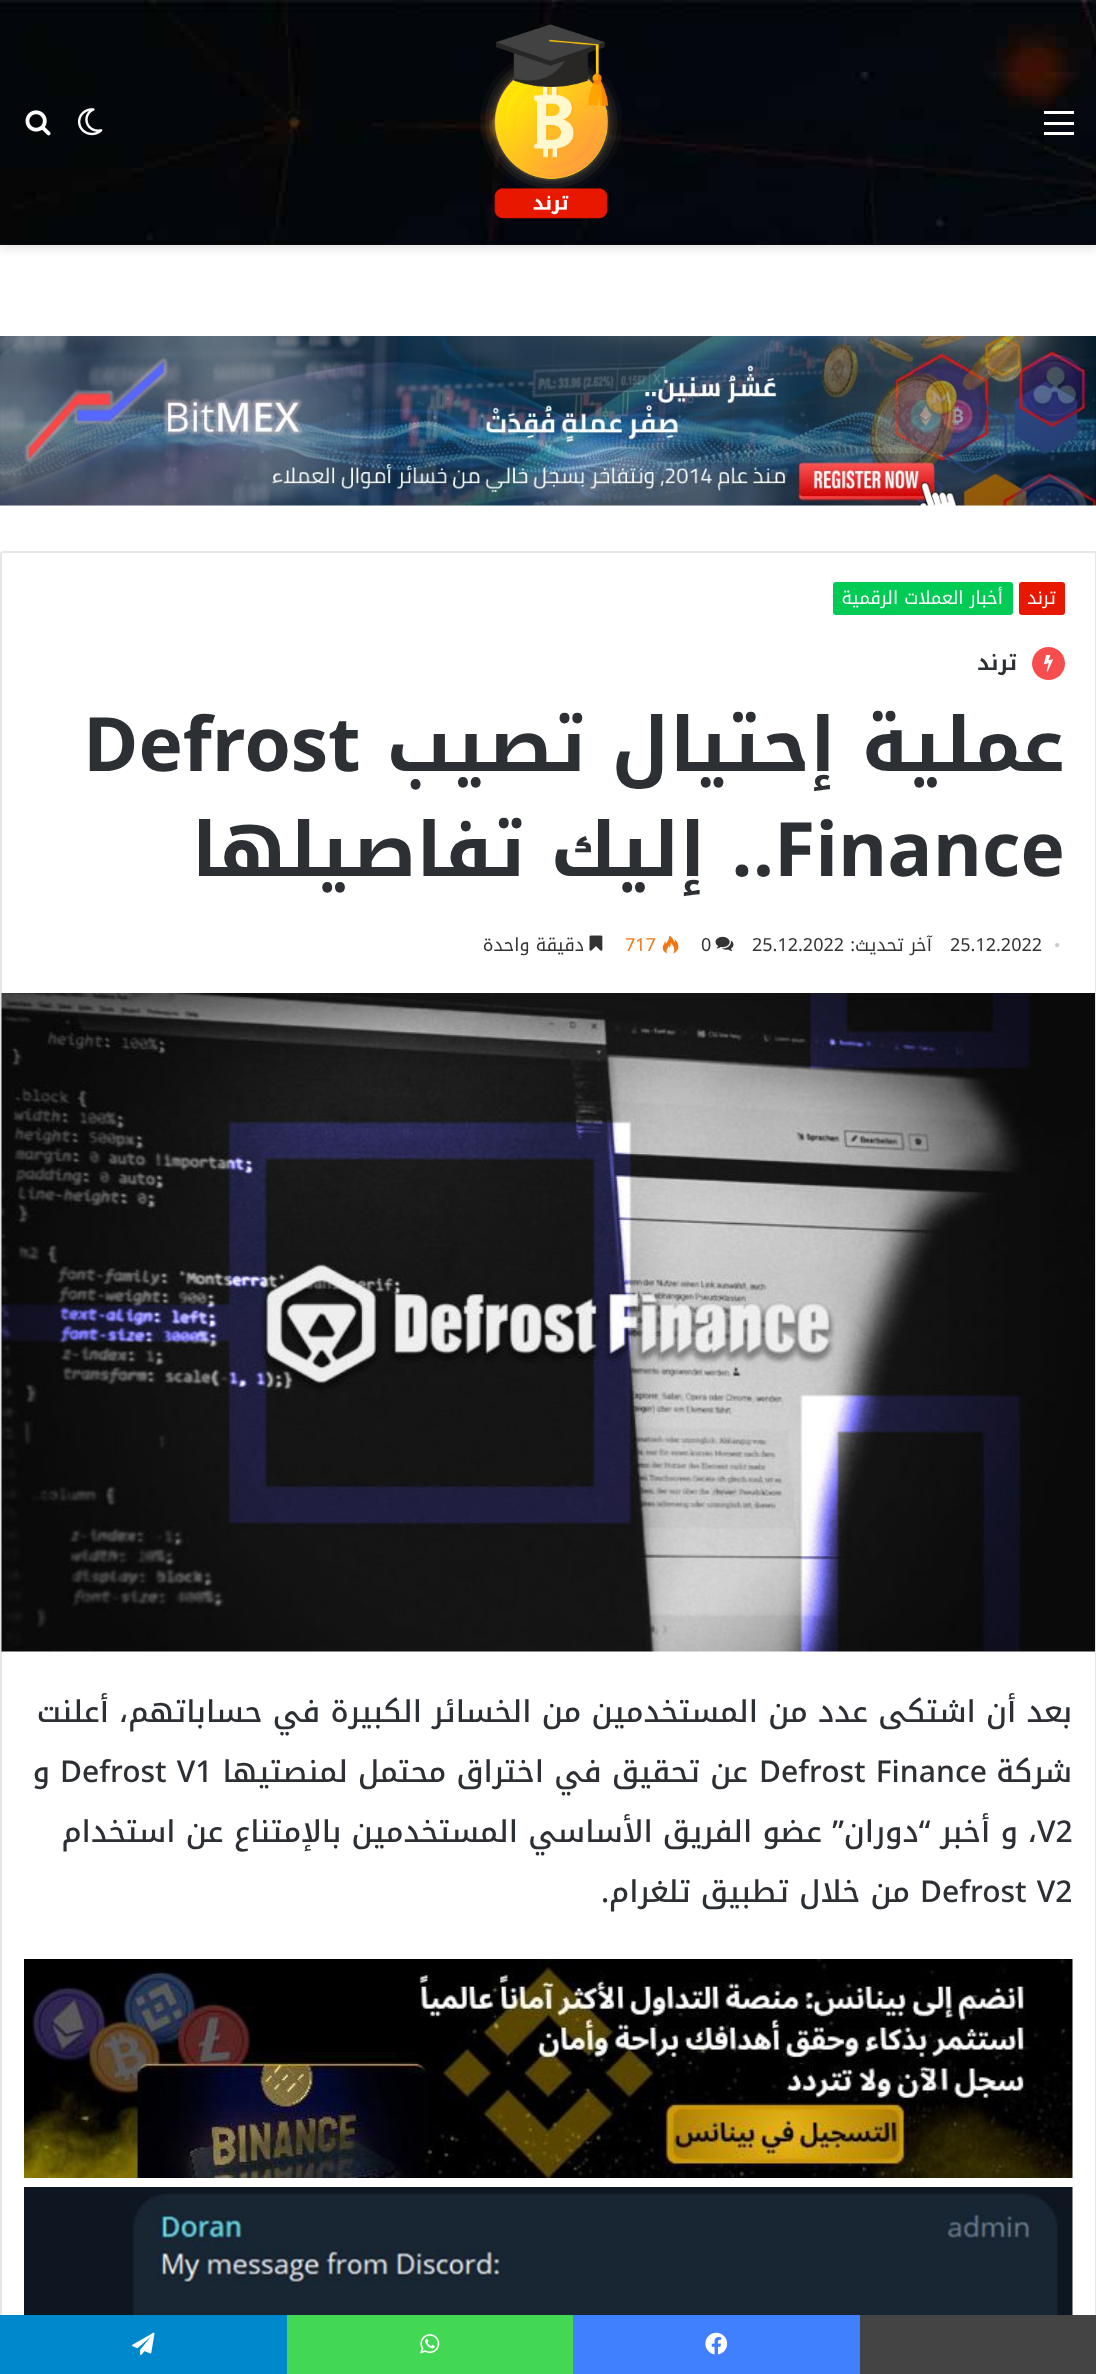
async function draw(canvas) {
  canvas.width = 1096
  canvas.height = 2374
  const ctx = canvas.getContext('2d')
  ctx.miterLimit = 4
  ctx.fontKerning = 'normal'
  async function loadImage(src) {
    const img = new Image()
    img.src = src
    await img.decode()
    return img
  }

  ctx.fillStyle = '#fff'
  ctx.fillRect(0, 0, 1096, 2374)
  ctx.fillStyle = '#0000001a'
  ctx.filter = 'blur(5px)'
  ctx.beginPath()
  ctx.rect(0, 5, 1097, 244)
  ctx.fill()
  ctx.filter = 'none'
  ctx.fillStyle = '#111'
  ctx.fillRect(0, 244, 1096, 1)
  ctx.drawImage(await loadImage('image0.png'), 0, 0, 1096, 245)
  ctx.fillStyle = '#fff'
  ctx.fillRect(1044, 122, 30, 3)
  ctx.fillRect(1044, 111, 30, 3)
  ctx.fillRect(1044, 132, 30, 3)
  ctx.drawImage(await loadImage('image1.png'), 480, 24, 142, 195)
  ctx.drawImage(await loadImage('image2.png'), 77, 108, 26, 28)
  ctx.drawImage(await loadImage('image3.png'), 25, 110, 26, 26)
  ctx.drawImage(await loadImage('image4.png'), 0, 336, 1096, 170)
  ctx.beginPath()
  ctx.roundRect(1, 552, 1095, 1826, 2)
  ctx.strokeStyle = '#e6e6e6'
  ctx.lineWidth = 2
  ctx.stroke()
  ctx.fillStyle = '#e81700'
  ctx.beginPath()
  ctx.roundRect(1019, 582, 46, 33, 3)
  ctx.fill()
  ctx.direction = 'rtl'
  ctx.font = '18px Noto Kufi Arabic'
  ctx.fillStyle = '#fff'
  ctx.fillText('ترند', 1056, 604)
  ctx.fillStyle = '#0c5'
  ctx.beginPath()
  ctx.roundRect(833, 582, 180, 33, 3)
  ctx.fill()
  ctx.fillStyle = '#fff'
  ctx.fillText('أخبار العملات الرقمية', 1003, 604)
  ctx.fillStyle = '#f64e4e'
  ctx.beginPath()
  ctx.arc(1048.5, 663.5, 16.5, 0, 2 * Math.PI)
  ctx.fill()
  ctx.drawImage(await loadImage('image5.png'), 1044, 655, 9, 17)
  ctx.font = 'bold 21px Noto Kufi Arabic'
  ctx.fillStyle = '#2c2f34'
  ctx.fillText('ترند', 1017, 670)
  ctx.font = 'bold 75px Noto Kufi Arabic'
  ctx.fillText('عملية إحتيال تصيب', 1065, 771)
  ctx.direction = 'ltr'
  ctx.fillText('Defrost', 83, 771)
  ctx.fillText('Finance', 774, 876)
  ctx.direction = 'rtl'
  ctx.fillText('.. إليك تفاصيلها', 774, 876)
  ctx.direction = 'ltr'
  ctx.font = '18px Liberation Serif'
  ctx.fillStyle = '#ccc'
  ctx.fillText('•', 1054, 951)
  ctx.font = '18px Noto Kufi Arabic'
  ctx.fillStyle = '#333'
  ctx.fillText('25.12.2022', 950, 951)
  ctx.direction = 'rtl'
  ctx.fillText('آخر تحديث:', 932, 951)
  ctx.direction = 'ltr'
  ctx.fillText('25.12.2022', 752, 951)
  ctx.drawImage(await loadImage('image6.png'), 715, 936, 19, 15)
  ctx.fillText('0', 701, 951)
  ctx.drawImage(await loadImage('image7.png'), 662, 935, 17, 19)
  ctx.fillStyle = '#f47512'
  ctx.fillText('717', 625, 951)
  ctx.drawImage(await loadImage('image8.png'), 589, 935, 14, 16)
  ctx.direction = 'rtl'
  ctx.fillStyle = '#333'
  ctx.fillText('دقيقة واحدة', 584, 951)
  ctx.drawImage(await loadImage('image9.png'), 1, 993, 1094, 659)
  ctx.font = '500 30px Noto Kufi Arabic'
  ctx.fillStyle = '#2c2f34'
  ctx.fillText('بعد أن اشتكى عدد من المستخدمين من الخسائر الكبيرة في حساباتهم، أعلنت', 1072, 1722)
  ctx.fillText('شركة', 1072, 1782)
  ctx.direction = 'ltr'
  ctx.fillText('Defrost Finance', 759, 1782)
  ctx.direction = 'rtl'
  ctx.fillText('عن تحقيق في اختراق محتمل لمنصتيها', 748, 1782)
  ctx.direction = 'ltr'
  ctx.fillText('Defrost V1', 60, 1782)
  ctx.direction = 'rtl'
  ctx.fillText('و', 50, 1782)
  ctx.direction = 'ltr'
  ctx.fillText('V2', 1037, 1842)
  ctx.direction = 'rtl'
  ctx.fillText('، و أخبر “دوران” عضو الفريق الأساسي المستخدمين بالإمتناع عن استخدام', 1037, 1842)
  ctx.direction = 'ltr'
  ctx.fillText('Defrost V2', 920, 1902)
  ctx.direction = 'rtl'
  ctx.fillText('من خلال تطبيق تلغرام.', 910, 1902)
  ctx.drawImage(await loadImage('image10.png'), 24, 1959, 1049, 219)
  ctx.drawImage(await loadImage('image11.png'), 24, 2187, 1049, 128)
  ctx.fillStyle = '#444'
  ctx.fillRect(860, 2315, 236, 59)
  ctx.fillStyle = '#4080ff'
  ctx.fillRect(573, 2315, 287, 59)
  ctx.drawImage(await loadImage('image12.png'), 705, 2332, 23, 23)
  ctx.fillStyle = '#43d854'
  ctx.fillRect(287, 2315, 286, 59)
  ctx.drawImage(await loadImage('image13.png'), 420, 2334, 20, 20)
  ctx.fillStyle = '#08c'
  ctx.fillRect(0, 2315, 287, 59)
  ctx.drawImage(await loadImage('image14.png'), 132, 2332, 23, 24)
}

draw(document.querySelector('canvas'))
